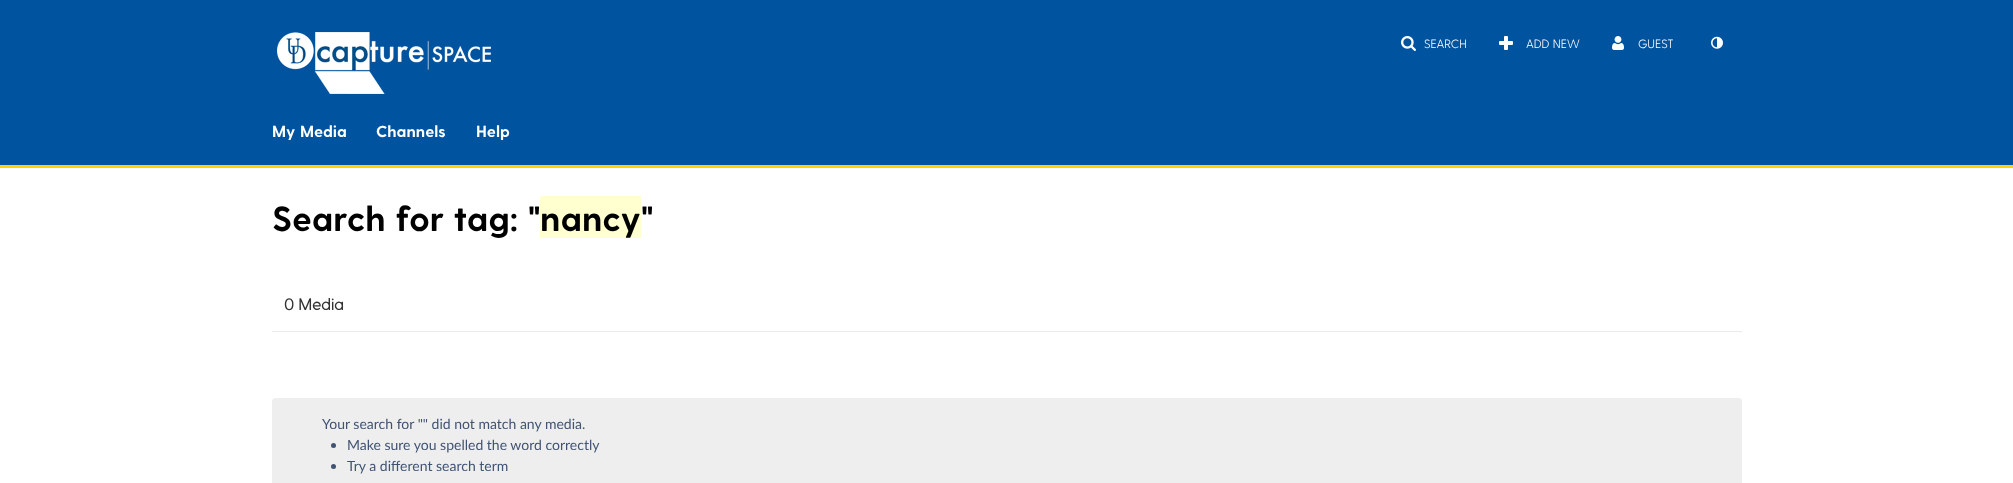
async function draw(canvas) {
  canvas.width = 2013
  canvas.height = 483
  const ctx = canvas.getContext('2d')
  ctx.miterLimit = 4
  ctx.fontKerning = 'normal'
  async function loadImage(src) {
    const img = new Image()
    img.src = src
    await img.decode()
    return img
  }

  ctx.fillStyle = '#fff'
  ctx.fillRect(0, 0, 2013, 483)
  ctx.fillStyle = '#ffd300'
  ctx.fillRect(0, 165, 2013, 3)
  ctx.fillStyle = '#00539f'
  ctx.fillRect(0, 0, 2013, 165)
  ctx.drawImage(await loadImage('image0.png'), 277, 32, 214, 62)
  ctx.drawImage(await loadImage('image1.png'), 1401, 36, 15, 15)
  ctx.font = '300 12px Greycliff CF'
  ctx.fillStyle = '#fff'
  ctx.fillText('SEARCH', 1424, 48)
  ctx.drawImage(await loadImage('image2.png'), 1499, 36, 14, 14)
  ctx.fillText('ADD NEW', 1526, 48)
  ctx.drawImage(await loadImage('image3.png'), 1612, 36, 12, 14)
  ctx.fillText('GUEST', 1638, 48)
  ctx.drawImage(await loadImage('image4.png'), 1711, 36, 12, 13)
  ctx.font = 'bold 16px Greycliff CF'
  ctx.fillText('My Media', 272, 137)
  ctx.fillText('Channels', 376, 137)
  ctx.fillText('Help', 476, 137)
  ctx.font = 'bold 35px Greycliff CF'
  ctx.fillStyle = '#000'
  ctx.fillText('Search for tag: "', 272, 231)
  ctx.fillStyle = '#ffffcf'
  ctx.fillRect(540, 196, 101, 42)
  ctx.fillStyle = '#000'
  ctx.fillText('nancy"', 540, 231)
  ctx.fillStyle = '#ebebeb'
  ctx.fillRect(272, 331, 1470, 1)
  ctx.font = 'bold 16px "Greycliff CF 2"'
  ctx.fillStyle = '#333'
  ctx.fillText('0 Media', 284, 310)
  ctx.fillStyle = '#eee'
  ctx.beginPath()
  ctx.roundRect(272, 398, 1470, 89, 4)
  ctx.fill()
  ctx.font = '14px Lato'
  ctx.fillStyle = '#405372'
  ctx.fillText('Your search for "" did not match any media.', 322, 429)
  ctx.beginPath()
  ctx.arc(333.5, 445.5, 2.5, 0, 2 * Math.PI)
  ctx.fill()
  ctx.fillText('Make sure you spelled the word correctly', 347, 450)
  ctx.beginPath()
  ctx.arc(333.5, 466.5, 2.5, 0, 2 * Math.PI)
  ctx.fill()
  ctx.fillText('Try a different search term', 347, 471)
}

draw(document.querySelector('canvas'))
